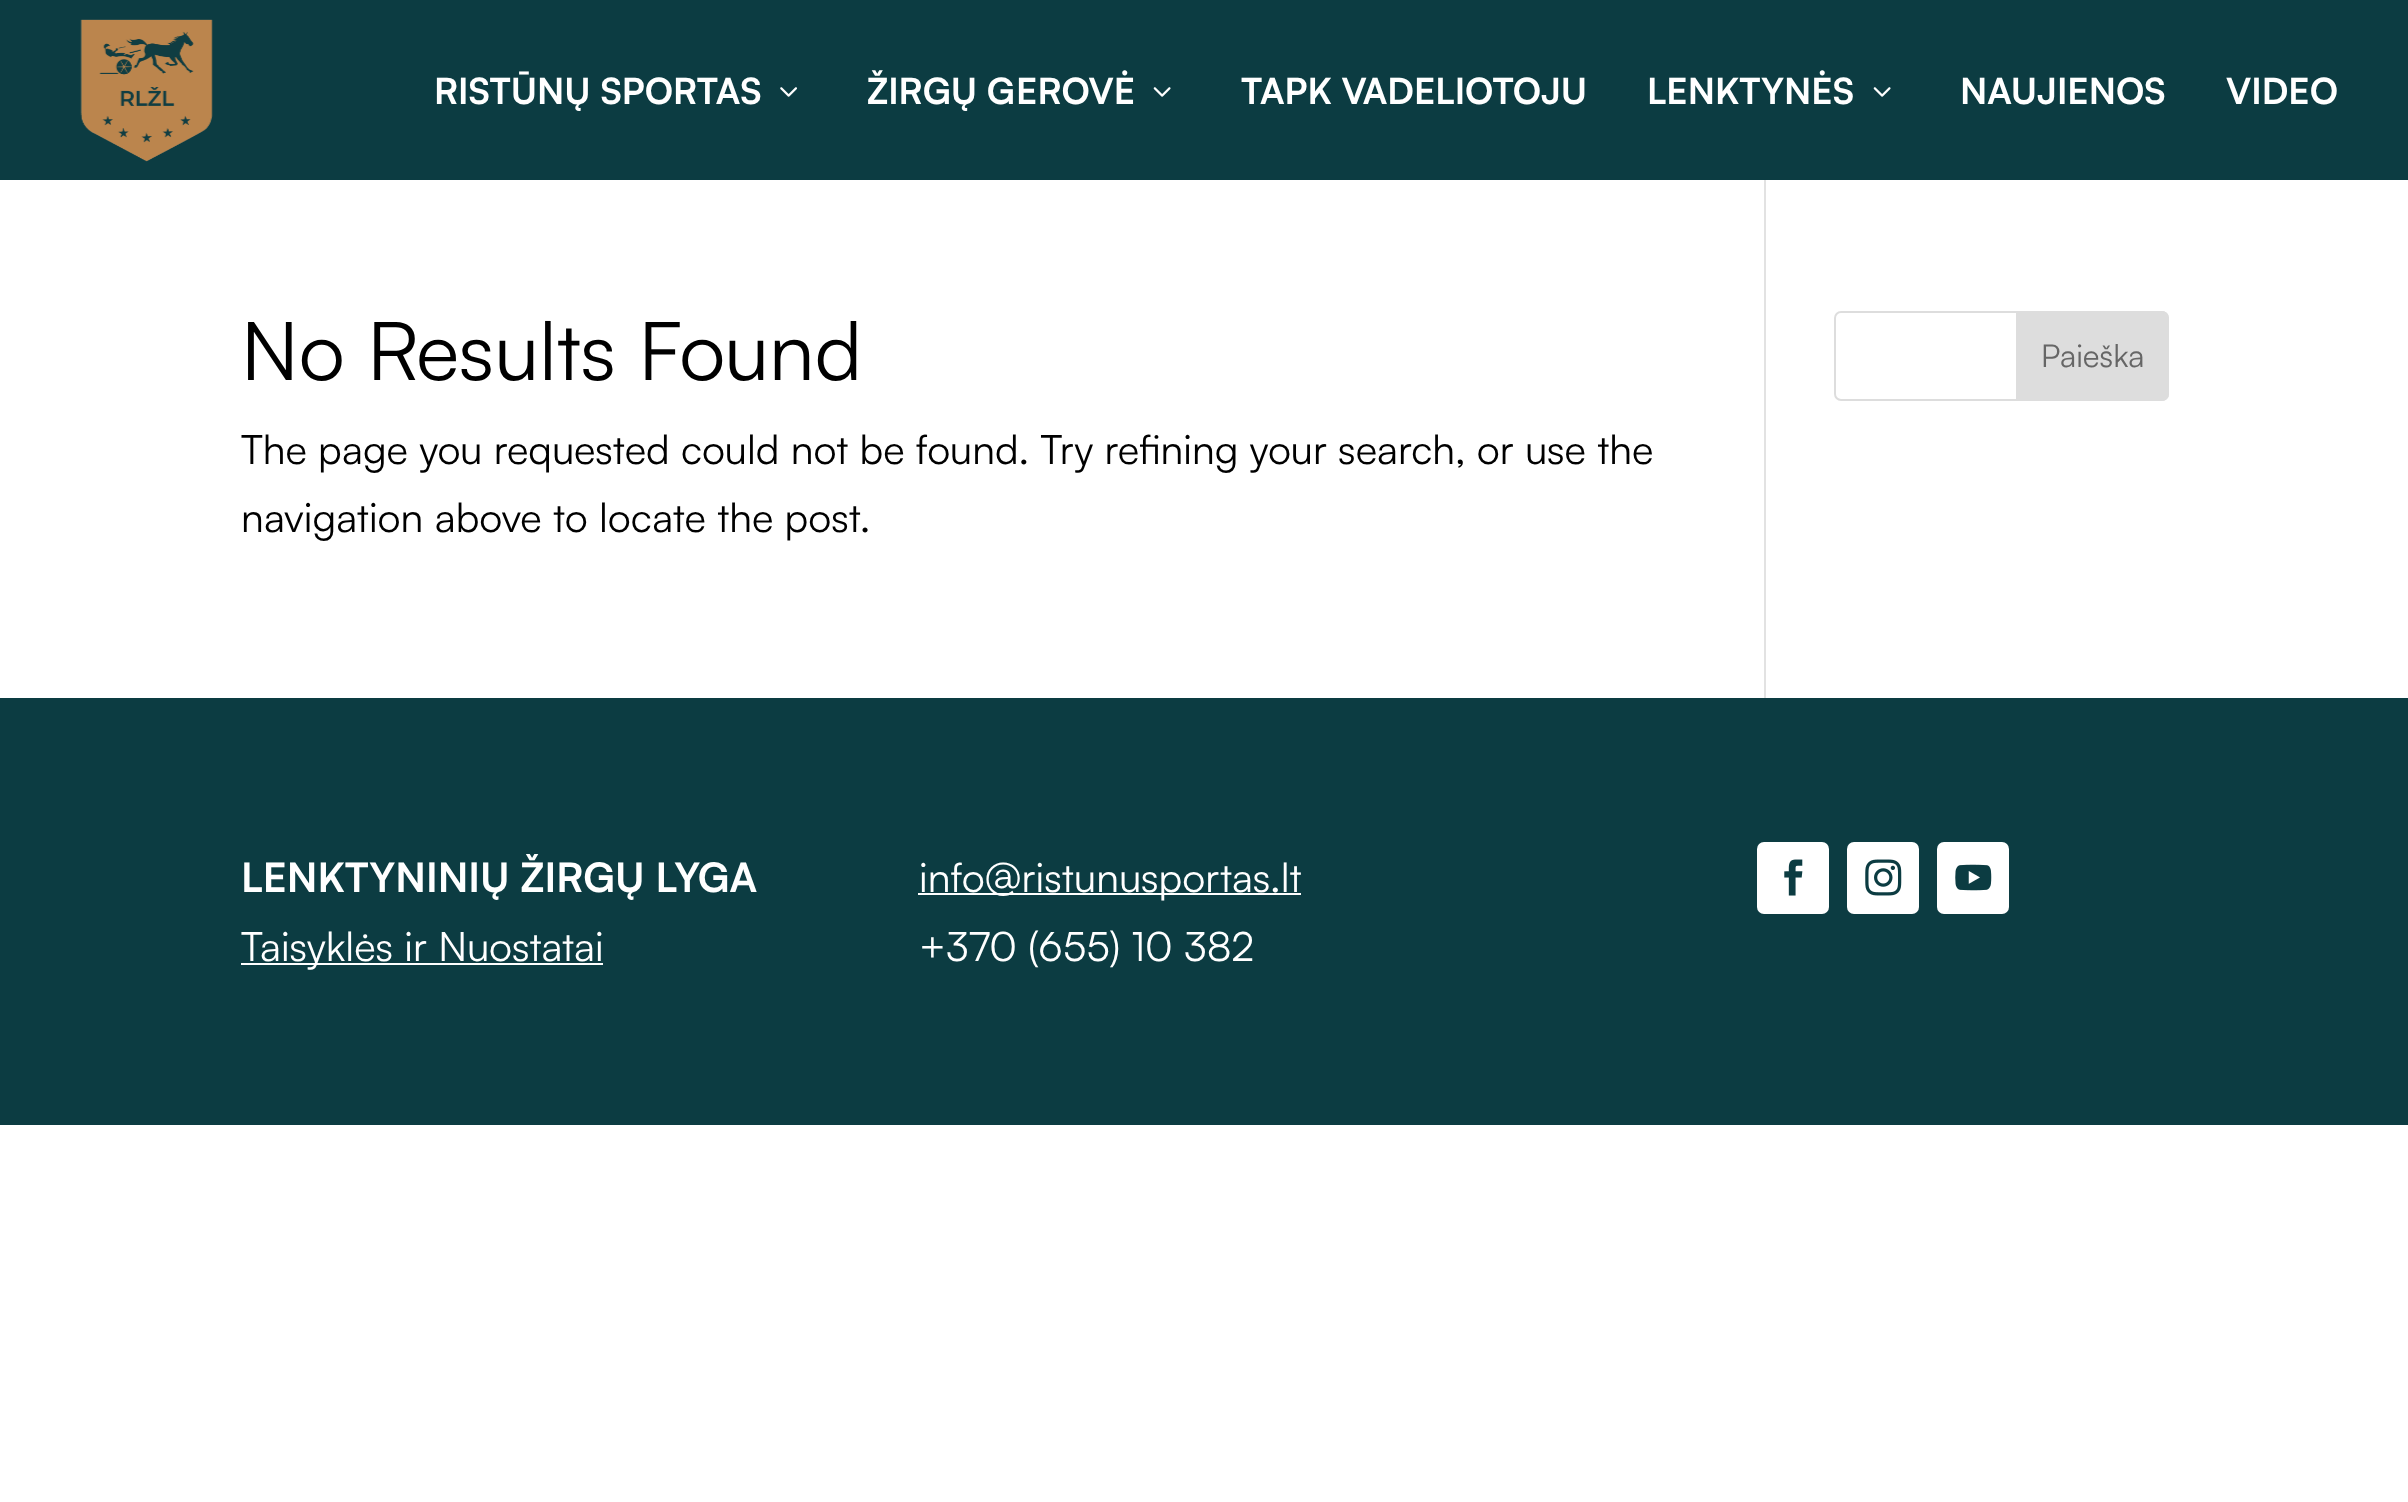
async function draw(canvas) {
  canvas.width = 2408
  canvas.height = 1502
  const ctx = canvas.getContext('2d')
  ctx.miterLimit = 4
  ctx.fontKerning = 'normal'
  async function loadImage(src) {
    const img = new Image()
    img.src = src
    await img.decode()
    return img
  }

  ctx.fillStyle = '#fff'
  ctx.fillRect(0, 0, 2408, 1502)
  ctx.fillStyle = '#0c3c42'
  ctx.fillRect(0, 0, 2408, 180)
  ctx.drawImage(await loadImage('image0.png'), 80, 19, 133, 143)
  ctx.font = 'bold 36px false'
  ctx.fillStyle = '#fff'
  ctx.fillText('RISTŪNŲ SPORTAS', 434, 104)
  ctx.drawImage(await loadImage('image1.png'), 780, 87, 17, 10)
  ctx.fillText('ŽIRGŲ GEROVĖ', 867, 104)
  ctx.drawImage(await loadImage('image2.png'), 1153, 87, 18, 10)
  ctx.fillText('TAPK VADELIOTOJU', 1241, 104)
  ctx.fillText('LENKTYNĖS', 1647, 104)
  ctx.drawImage(await loadImage('image2.png'), 1873, 87, 18, 10)
  ctx.fillText('NAUJIENOS', 1960, 104)
  ctx.fillText('VIDEO', 2226, 104)
  ctx.fillStyle = '#e2e2e2'
  ctx.fillRect(1764, 180, 2, 518)
  ctx.font = '81px false'
  ctx.fillStyle = '#000'
  ctx.fillText('No Results Found', 241, 380)
  ctx.font = '40.5px false'
  ctx.fillText('The page you requested could not be found. Try refining your search, or use the', 241, 464)
  ctx.fillText('navigation above to locate the post.', 241, 532)
  ctx.beginPath()
  ctx.roundRect(1835, 312, 333, 88, 6)
  ctx.strokeStyle = '#ddd'
  ctx.lineWidth = 2
  ctx.stroke()
  ctx.fillStyle = '#ddd'
  ctx.beginPath()
  ctx.roundRect(2017, 312, 151, 88, [0, 6, 6, 0])
  ctx.fill()
  ctx.stroke()
  ctx.font = '31.5px false'
  ctx.fillStyle = '#666'
  ctx.fillText('Paieška', 2041, 367)
  ctx.fillStyle = '#0c3c42'
  ctx.fillRect(0, 698, 2408, 427)
  ctx.font = 'bold 40.5px false'
  ctx.fillStyle = '#fff'
  ctx.fillText('LENKTYNINIŲ ŽIRGŲ LYGA', 241, 892)
  ctx.fillRect(241, 963, 362, 2)
  ctx.font = '40.5px false'
  ctx.fillText('Taisyklės ir Nuostatai', 241, 961)
  ctx.fillRect(918, 893, 383, 2)
  ctx.fillText('info@ristunusportas.lt', 919, 892)
  ctx.fillText('+370 (655) 10 382', 919, 961)
  ctx.beginPath()
  ctx.roundRect(1757, 842, 72, 72, 7)
  ctx.fill()
  ctx.drawImage(await loadImage('image3.png'), 1784, 859, 19, 37)
  ctx.beginPath()
  ctx.roundRect(1847, 842, 72, 72, 7)
  ctx.fill()
  ctx.drawImage(await loadImage('image4.png'), 1865, 859, 37, 37)
  ctx.beginPath()
  ctx.roundRect(1937, 842, 72, 72, 7)
  ctx.fill()
  ctx.drawImage(await loadImage('image5.png'), 1955, 864, 37, 27)
}

draw(document.querySelector('canvas'))
